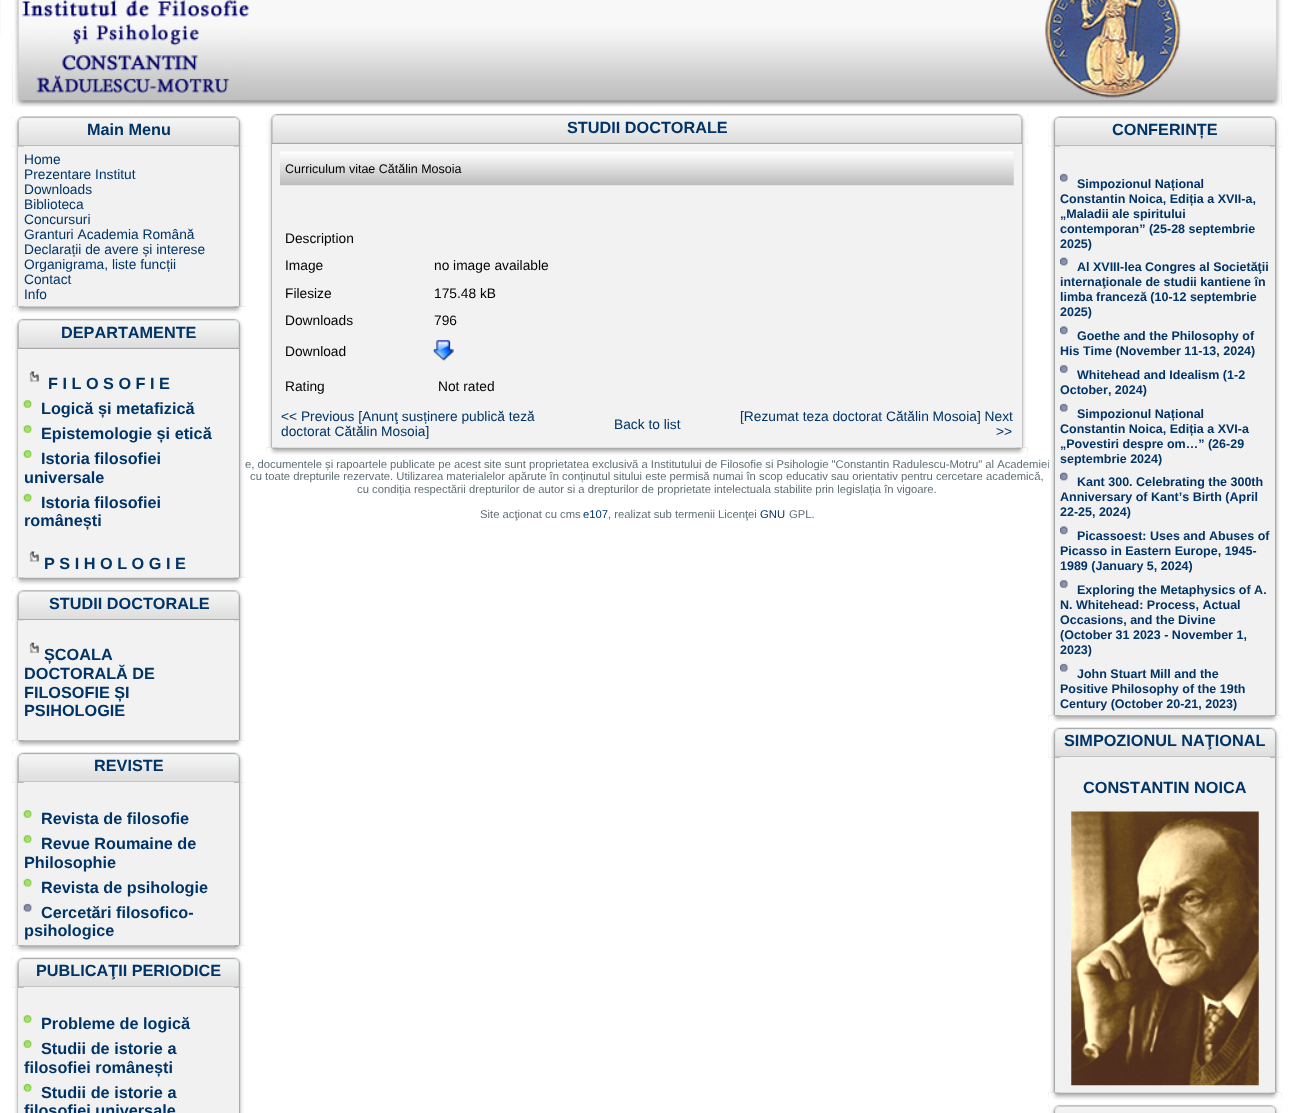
async function draw(canvas) {
  canvas.width = 1293
  canvas.height = 1113
  const ctx = canvas.getContext('2d')
  ctx.miterLimit = 4
  ctx.fontKerning = 'none'
  async function loadImage(src) {
    const img = new Image()
    img.src = src
    await img.decode()
    return img
  }

  ctx.fillStyle = '#fff'
  ctx.fillRect(0, 0, 1293, 1113)
  ctx.drawImage(await loadImage('image0.png'), 0, 0, 1, 36)
  ctx.drawImage(await loadImage('image1.png'), 12, 0, 1270, 107)
  ctx.drawImage(await loadImage('image2.png'), 12, 0, 237, 107)
  ctx.drawImage(await loadImage('image3.png'), 1045, 0, 137, 98)
  ctx.drawImage(await loadImage('image4.png'), 1272, 0, 10, 107)
  ctx.drawImage(await loadImage('image6.png'), 12, 116, 233, 31)
  ctx.drawImage(await loadImage('image8.png'), 12, 146, 6, 161)
  ctx.fillStyle = '#f1f1f1'
  ctx.fillRect(18, 146, 220, 161)
  ctx.drawImage(await loadImage('image5.png'), 12, 116, 12, 31)
  ctx.font = 'bold 16.25px Liberation Sans'
  ctx.fillStyle = '#036'
  ctx.fillText('Main Menu', 87, 135)
  ctx.drawImage(await loadImage('image9.png'), 238, 146, 7, 161)
  ctx.fillStyle = '#eee'
  ctx.fillRect(238, 146, 1, 160)
  ctx.drawImage(await loadImage('image7.png'), 233, 116, 12, 31)
  ctx.font = '13.75px Liberation Sans'
  ctx.fillStyle = '#036'
  ctx.fillText('Home', 24, 164)
  ctx.fillText('Prezentare Institut', 24, 179)
  ctx.fillText('Downloads', 24, 194)
  ctx.fillText('Biblioteca', 24, 209)
  ctx.fillText('Concursuri', 24, 224)
  ctx.fillText('Granturi Academia Română', 24, 239)
  ctx.fillText('Declarații de avere și interese', 24, 254)
  ctx.fillText('Organigrama, liste funcții', 24, 269)
  ctx.fillText('Contact', 24, 284)
  ctx.fillText('Info', 24, 299)
  ctx.drawImage(await loadImage('image10.png'), 12, 306, 233, 8)
  ctx.drawImage(await loadImage('image11.png'), 12, 306, 12, 8)
  ctx.drawImage(await loadImage('image12.png'), 233, 306, 12, 8)
  ctx.drawImage(await loadImage('image14.png'), 12, 318, 222, 31)
  ctx.drawImage(await loadImage('image13.png'), 12, 318, 11, 31)
  ctx.font = 'bold 16.25px Liberation Sans'
  ctx.fillText('DEPARTAMENTE', 61, 338)
  ctx.drawImage(await loadImage('image15.png'), 234, 318, 11, 31)
  ctx.drawImage(await loadImage('image16.png'), 14, 349, 4, 229)
  ctx.drawImage(await loadImage('image17.png'), 239, 349, 5, 229)
  ctx.fillStyle = '#eee'
  ctx.fillRect(238, 349, 1, 229)
  ctx.fillStyle = '#f2f2f2'
  ctx.fillRect(18, 349, 220, 229)
  ctx.drawImage(await loadImage('image18.png'), 29, 371, 10, 11)
  ctx.fillStyle = '#036'
  ctx.fillText('F I L O S O F I E', 48, 389)
  ctx.drawImage(await loadImage('image19.png'), 23, 400, 9, 8)
  ctx.fillText('Logică și metafizică', 41, 414)
  ctx.drawImage(await loadImage('image19.png'), 23, 425, 9, 8)
  ctx.fillText('Epistemologie și etică', 41, 439)
  ctx.drawImage(await loadImage('image19.png'), 23, 450, 9, 8)
  ctx.fillText('Istoria filosofiei', 41, 464)
  ctx.fillText('universale', 24, 483)
  ctx.drawImage(await loadImage('image20.png'), 23, 493, 9, 9)
  ctx.fillText('Istoria filosofiei', 41, 508)
  ctx.fillText('românești', 24, 526)
  ctx.drawImage(await loadImage('image18.png'), 29, 551, 10, 11)
  ctx.fillText('P S I H O L O G I E', 44, 569)
  ctx.drawImage(await loadImage('image21.png'), 12, 577, 233, 8)
  ctx.drawImage(await loadImage('image22.png'), 12, 577, 12, 8)
  ctx.drawImage(await loadImage('image23.png'), 234, 577, 11, 8)
  ctx.drawImage(await loadImage('image25.png'), 12, 589, 233, 32)
  ctx.drawImage(await loadImage('image27.png'), 12, 620, 6, 121)
  ctx.fillStyle = '#f2f2f2'
  ctx.fillRect(18, 620, 220, 121)
  ctx.drawImage(await loadImage('image24.png'), 12, 589, 12, 32)
  ctx.fillStyle = '#036'
  ctx.fillText('STUDII DOCTORALE', 49, 609)
  ctx.drawImage(await loadImage('image28.png'), 238, 620, 7, 121)
  ctx.fillStyle = '#eee'
  ctx.fillRect(238, 620, 1, 120)
  ctx.drawImage(await loadImage('image26.png'), 233, 589, 12, 32)
  ctx.drawImage(await loadImage('image29.png'), 29, 642, 10, 11)
  ctx.fillStyle = '#036'
  ctx.fillText('ȘCOALA', 44, 660)
  ctx.fillText('DOCTORALĂ DE', 24, 679)
  ctx.fillText('FILOSOFIE ȘI', 24, 698)
  ctx.fillText('PSIHOLOGIE', 24, 716)
  ctx.drawImage(await loadImage('image30.png'), 12, 740, 233, 7)
  ctx.drawImage(await loadImage('image31.png'), 12, 740, 12, 7)
  ctx.drawImage(await loadImage('image32.png'), 234, 740, 11, 7)
  ctx.drawImage(await loadImage('image34.png'), 12, 752, 233, 31)
  ctx.drawImage(await loadImage('image36.png'), 12, 782, 7, 164)
  ctx.drawImage(await loadImage('image37.png'), 238, 782, 7, 164)
  ctx.fillStyle = '#f1f1f1'
  ctx.fillRect(18, 782, 221, 163)
  ctx.drawImage(await loadImage('image33.png'), 12, 752, 12, 31)
  ctx.fillStyle = '#036'
  ctx.fillText('REVISTE', 94, 771)
  ctx.drawImage(await loadImage('image35.png'), 233, 752, 12, 31)
  ctx.drawImage(await loadImage('image38.png'), 23, 810, 9, 8)
  ctx.fillText('Revista de filosofie', 41, 824)
  ctx.drawImage(await loadImage('image38.png'), 23, 835, 9, 8)
  ctx.fillText('Revue Roumaine de', 41, 849)
  ctx.fillText('Philosophie', 24, 868)
  ctx.drawImage(await loadImage('image39.png'), 23, 878, 9, 9)
  ctx.fillText('Revista de psihologie', 41, 893)
  ctx.drawImage(await loadImage('image40.png'), 23, 903, 9, 9)
  ctx.fillText('Cercetări filosofico-', 41, 918)
  ctx.fillText('psihologice', 24, 936)
  ctx.drawImage(await loadImage('image41.png'), 12, 945, 233, 7)
  ctx.drawImage(await loadImage('image42.png'), 12, 945, 12, 7)
  ctx.drawImage(await loadImage('image43.png'), 234, 945, 11, 7)
  ctx.drawImage(await loadImage('image34.png'), 12, 957, 233, 31)
  ctx.drawImage(await loadImage('image44.png'), 12, 987, 6, 126)
  ctx.fillStyle = '#f1f1f1'
  ctx.fillRect(18, 987, 221, 126)
  ctx.drawImage(await loadImage('image33.png'), 12, 957, 12, 31)
  ctx.fillStyle = '#036'
  ctx.fillText('PUBLICAŢII PERIODICE', 36, 976)
  ctx.drawImage(await loadImage('image45.png'), 239, 987, 6, 126)
  ctx.drawImage(await loadImage('image35.png'), 233, 957, 12, 31)
  ctx.drawImage(await loadImage('image38.png'), 23, 1015, 9, 8)
  ctx.fillText('Probleme de logică', 41, 1029)
  ctx.drawImage(await loadImage('image38.png'), 23, 1040, 9, 8)
  ctx.fillText('Studii de istorie a', 41, 1054)
  ctx.fillText('filosofiei românești', 24, 1073)
  ctx.drawImage(await loadImage('image39.png'), 23, 1083, 9, 9)
  ctx.fillText('Studii de istorie a', 41, 1098)
  ctx.fillText('filosofiei universale', 24, 1116)
  ctx.drawImage(await loadImage('image47.png'), 266, 113, 762, 31)
  ctx.drawImage(await loadImage('image46.png'), 266, 113, 11, 31)
  ctx.fillText('STUDII DOCTORALE', 567, 133)
  ctx.drawImage(await loadImage('image48.png'), 1017, 113, 11, 31)
  ctx.drawImage(await loadImage('image49.png'), 268, 144, 4, 304)
  ctx.drawImage(await loadImage('image50.png'), 1022, 144, 4, 304)
  ctx.fillStyle = '#f2f2f2'
  ctx.fillRect(272, 144, 750, 304)
  ctx.drawImage(await loadImage('image51.png'), 280, 151, 734, 35)
  ctx.font = '12.5px Liberation Sans'
  ctx.fillStyle = '#000'
  ctx.fillText('Curriculum vitae Cătălin Mosoia', 285, 173)
  ctx.font = '13.75px Liberation Sans'
  ctx.fillText('Description', 285, 243)
  ctx.fillText('Image', 285, 270)
  ctx.fillText('no image available', 434, 270)
  ctx.fillText('Filesize', 285, 298)
  ctx.fillText('175.48 kB', 434, 298)
  ctx.fillText('Downloads', 285, 325)
  ctx.fillText('796', 434, 325)
  ctx.fillText('Download', 285, 356)
  ctx.drawImage(await loadImage('image52.png'), 433, 340, 21, 21)
  ctx.fillText('Rating', 285, 391)
  ctx.fillText('Not rated', 438, 391)
  ctx.fillStyle = '#036'
  ctx.fillText('<< Previous [Anunţ susținere publică teză', 281, 421)
  ctx.fillText('doctorat Cătălin Mosoia]', 281, 436)
  ctx.fillText('Back to list', 614, 429)
  ctx.fillText('[Rezumat teza doctorat Cătălin Mosoia] Next', 740, 421)
  ctx.fillText('>>', 996, 436)
  ctx.drawImage(await loadImage('image53.png'), 266, 447, 762, 8)
  ctx.drawImage(await loadImage('image54.png'), 266, 447, 12, 8)
  ctx.drawImage(await loadImage('image55.png'), 1016, 447, 12, 8)
  ctx.drawImage(await loadImage('image57.png'), 1048, 116, 234, 31)
  ctx.font = '11.25px Liberation Sans'
  ctx.fillStyle = '#5d6e75'
  ctx.fillText('e, documentele și rapoartele publicate pe acest site sunt proprietatea exclusivă a Institutului de Filosofie si Psihologie "Constantin Radulescu-Motru" al Academiei', 245, 468)
  ctx.drawImage(await loadImage('image59.png'), 1048, 146, 7, 570)
  ctx.fillStyle = '#eee'
  ctx.fillRect(1055, 146, 220, 3)
  ctx.drawImage(await loadImage('image56.png'), 1048, 116, 12, 31)
  ctx.font = 'bold 16.25px Liberation Sans'
  ctx.fillStyle = '#036'
  ctx.fillText('CONFERINȚE', 1112, 135)
  ctx.drawImage(await loadImage('image60.png'), 1275, 146, 6, 570)
  ctx.drawImage(await loadImage('image58.png'), 1270, 116, 12, 31)
  ctx.fillStyle = '#f1f1f1'
  ctx.fillRect(1055, 149, 220, 566)
  ctx.drawImage(await loadImage('image61.png'), 1060, 173, 8, 9)
  ctx.font = 'bold 12.5px Liberation Sans'
  ctx.fillStyle = '#036'
  ctx.fillText('Simpozionul Național', 1077, 188)
  ctx.fillText('Constantin Noica, Ediția a XVII-a,', 1060, 203)
  ctx.fillText('„Maladii ale spiritului', 1060, 218)
  ctx.fillText('contemporan” (25-28 septembrie', 1060, 233)
  ctx.fillText('2025)', 1060, 248)
  ctx.drawImage(await loadImage('image62.png'), 1060, 257, 8, 9)
  ctx.fillText('Al XVIII-lea Congres al Societăţii', 1077, 271)
  ctx.fillText('internaţionale de studii kantiene în', 1060, 286)
  ctx.fillText('limba franceză (10-12 septembrie', 1060, 301)
  ctx.fillText('2025)', 1060, 316)
  ctx.drawImage(await loadImage('image63.png'), 1060, 326, 8, 9)
  ctx.fillText('Goethe and the Philosophy of', 1077, 340)
  ctx.fillText('His Time (November 11-13, 2024)', 1060, 355)
  ctx.drawImage(await loadImage('image64.png'), 1060, 365, 8, 8)
  ctx.fillText('Whitehead and Idealism (1-2', 1077, 379)
  ctx.fillText('October, 2024)', 1060, 394)
  ctx.drawImage(await loadImage('image61.png'), 1060, 403, 8, 9)
  ctx.fillText('Simpozionul Național', 1077, 418)
  ctx.fillText('Constantin Noica, Ediția a XVI-a', 1060, 433)
  ctx.fillText('„Povestiri despre om…” (26-29', 1060, 448)
  ctx.fillText('septembrie 2024)', 1060, 463)
  ctx.drawImage(await loadImage('image62.png'), 1060, 472, 8, 9)
  ctx.fillText('Kant 300. Celebrating the 300th', 1077, 486)
  ctx.fillText('Anniversary of Kant’s Birth (April', 1060, 501)
  ctx.fillText('22-25, 2024)', 1060, 516)
  ctx.drawImage(await loadImage('image63.png'), 1060, 526, 8, 9)
  ctx.fillText('Picassoest: Uses and Abuses of', 1077, 540)
  ctx.fillText('Picasso in Eastern Europe, 1945-', 1060, 555)
  ctx.fillText('1989 (January 5, 2024)', 1060, 570)
  ctx.drawImage(await loadImage('image64.png'), 1060, 580, 8, 8)
  ctx.fillText('Exploring the Metaphysics of A.', 1077, 594)
  ctx.fillText('N. Whitehead: Process, Actual', 1060, 609)
  ctx.fillText('Occasions, and the Divine', 1060, 624)
  ctx.fillText('(October 31 2023 - November 1,', 1060, 639)
  ctx.fillText('2023)', 1060, 654)
  ctx.drawImage(await loadImage('image61.png'), 1060, 663, 8, 9)
  ctx.fillText('John Stuart Mill and the', 1077, 678)
  ctx.fillText('Positive Philosophy of the 19th', 1060, 693)
  ctx.fillText('Century (October 20-21, 2023)', 1060, 708)
  ctx.drawImage(await loadImage('image65.png'), 1048, 715, 234, 7)
  ctx.drawImage(await loadImage('image66.png'), 1048, 715, 12, 7)
  ctx.drawImage(await loadImage('image67.png'), 1270, 715, 12, 7)
  ctx.drawImage(await loadImage('image69.png'), 1048, 727, 234, 31)
  ctx.drawImage(await loadImage('image71.png'), 1049, 757, 6, 336)
  ctx.fillStyle = '#f1f1f1'
  ctx.fillRect(1055, 757, 220, 335)
  ctx.drawImage(await loadImage('image68.png'), 1048, 727, 12, 31)
  ctx.font = 'bold 16.25px Liberation Sans'
  ctx.fillStyle = '#036'
  ctx.fillText('SIMPOZIONUL NAŢIONAL', 1064, 746)
  ctx.drawImage(await loadImage('image72.png'), 1275, 757, 6, 336)
  ctx.drawImage(await loadImage('image70.png'), 1270, 727, 12, 31)
  ctx.fillStyle = '#eee'
  ctx.fillRect(1055, 1092, 220, 1)
  ctx.fillStyle = '#036'
  ctx.fillText('CONSTANTIN NOICA', 1083, 793)
  ctx.drawImage(await loadImage('image73.png'), 1071, 811, 188, 275)
  ctx.drawImage(await loadImage('image74.png'), 1048, 1092, 234, 8)
  ctx.drawImage(await loadImage('image75.png'), 1048, 1092, 12, 8)
  ctx.drawImage(await loadImage('image76.png'), 1270, 1092, 12, 8)
  ctx.drawImage(await loadImage('image77.png'), 1048, 1104, 234, 9)
  ctx.drawImage(await loadImage('image78.png'), 1049, 1104, 10, 9)
  ctx.drawImage(await loadImage('image79.png'), 1271, 1104, 10, 9)
  ctx.font = '11.25px Liberation Sans'
  ctx.fillStyle = '#5d6e75'
  ctx.fillText('cu toate drepturile rezervate. Utilizarea materialelor apărute în conținutul sitului este permisă numai în scop educativ sau orientativ pentru cercetare academică,', 250, 480)
  ctx.fillText('cu condiția respectării drepturilor de autor si a drepturilor de proprietate intelectuala stabilite prin legislația în vigoare.', 357, 493)
  ctx.fillText('Site acţionat cu cms', 480, 518)
  ctx.fillStyle = '#036'
  ctx.fillText('e107', 583, 518)
  ctx.fillStyle = '#5d6e75'
  ctx.fillText(', realizat sub termenii Licenţei', 608, 518)
  ctx.fillStyle = '#036'
  ctx.fillText('GNU', 760, 518)
  ctx.fillStyle = '#5d6e75'
  ctx.fillText('GPL.', 789, 518)
}

draw(document.querySelector('canvas'))
